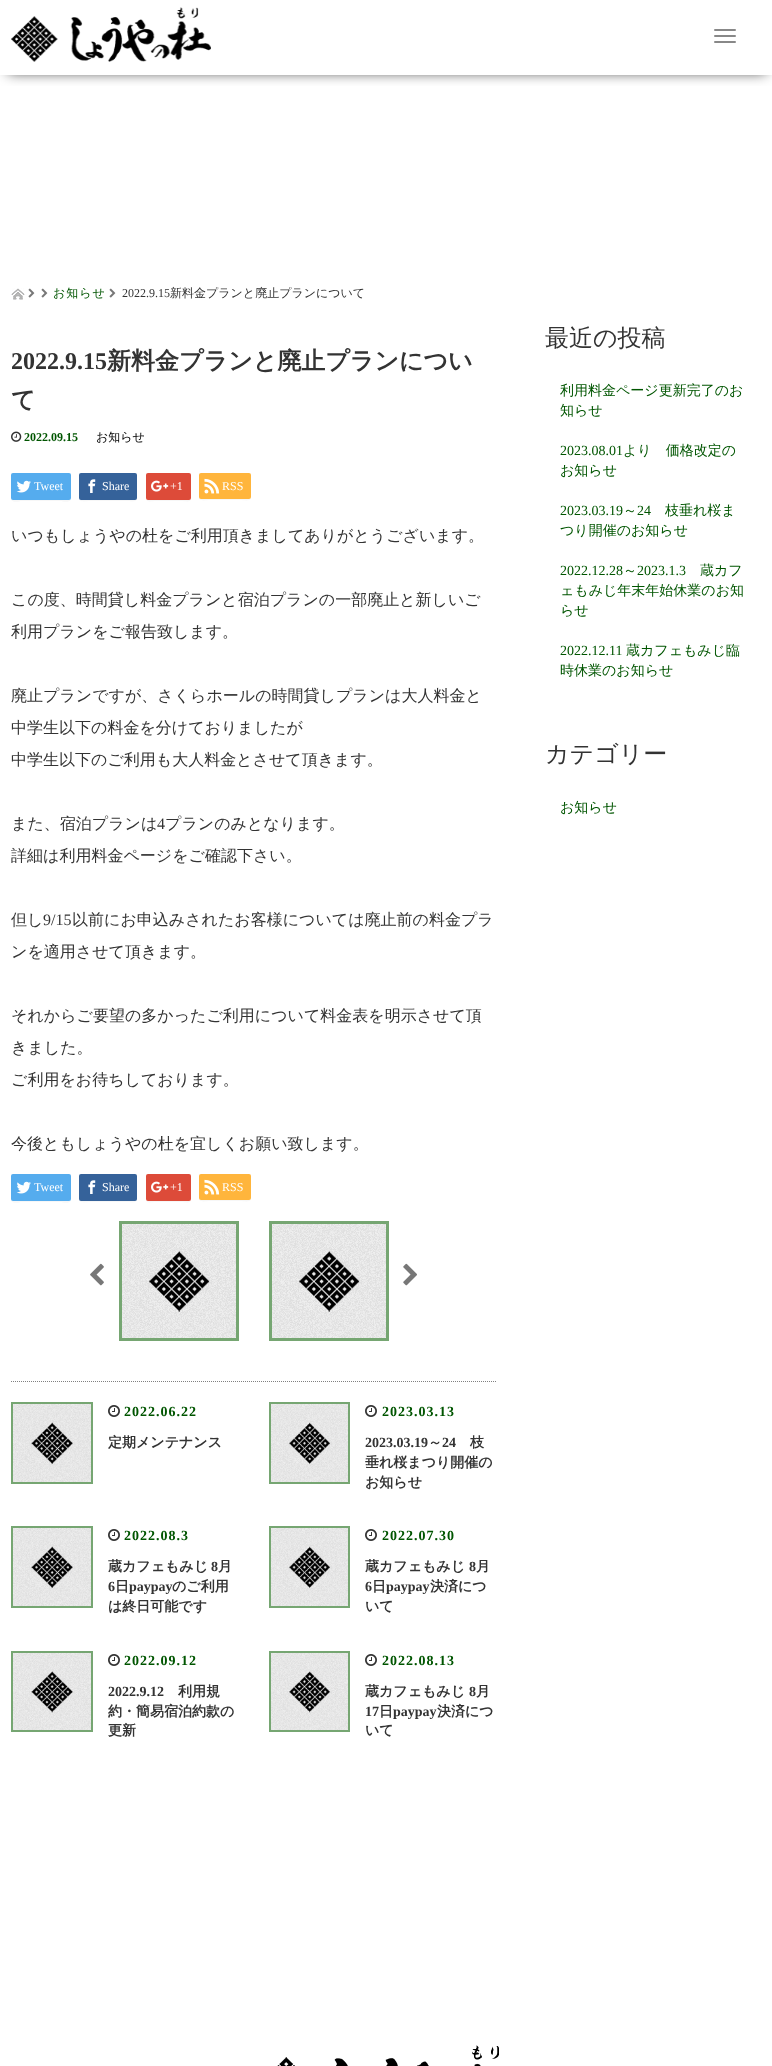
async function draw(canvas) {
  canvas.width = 772
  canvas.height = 2066
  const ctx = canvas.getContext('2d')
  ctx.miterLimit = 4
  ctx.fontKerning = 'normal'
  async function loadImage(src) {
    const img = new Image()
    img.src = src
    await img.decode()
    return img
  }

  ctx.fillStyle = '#fff'
  ctx.fillRect(0, 0, 772, 2066)
  ctx.save()
  ctx.beginPath()
  ctx.rect(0, 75, 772, 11)
  ctx.clip()
  ctx.fillStyle = '#000000d1'
  ctx.filter = 'blur(7px)'
  ctx.beginPath()
  ctx.rect(8, 11, 758, 61)
  ctx.fill()
  ctx.filter = 'none'
  ctx.restore()
  ctx.drawImage(await loadImage('image0.png'), 11, 7, 200, 55)
  ctx.fillStyle = '#888'
  ctx.beginPath()
  ctx.roundRect(714, 29, 22, 2, 1)
  ctx.fill()
  ctx.beginPath()
  ctx.roundRect(714, 35, 22, 2, 1)
  ctx.fill()
  ctx.beginPath()
  ctx.roundRect(714, 41, 22, 2, 1)
  ctx.fill()
  ctx.drawImage(await loadImage('image1.png'), 11, 288, 14, 12)
  ctx.drawImage(await loadImage('image2.png'), 28, 288, 7, 10)
  ctx.drawImage(await loadImage('image2.png'), 41, 288, 7, 10)
  ctx.letterSpacing = '1px'
  ctx.font = '500 12px WenQuanYi Zen Hei'
  ctx.fillStyle = '#050'
  ctx.fillText('お知らせ', 53, 297)
  ctx.drawImage(await loadImage('image2.png'), 109, 288, 7, 10)
  ctx.letterSpacing = '0px'
  ctx.font = '12px Liberation Serif'
  ctx.fillStyle = '#333'
  ctx.fillText('2022.9.15', 122, 297)
  ctx.font = '500 12px WenQuanYi Zen Hei'
  ctx.fillText('新料金プランと廃止プランについて', 170, 297)
  ctx.font = 'bold 24px Liberation Serif'
  ctx.fillText('2022.9.15', 11, 369)
  ctx.font = 'bold 24px WenQuanYi Zen Hei'
  ctx.fillText('新料金プランと廃止プランについ', 107, 369)
  ctx.fillText('て', 11, 408)
  ctx.drawImage(await loadImage('image3.png'), 11, 431, 11, 11)
  ctx.font = 'bold 12px Liberation Serif'
  ctx.fillStyle = '#050'
  ctx.fillText('2022.09.15', 24, 441)
  ctx.font = '500 12px WenQuanYi Zen Hei'
  ctx.fillStyle = '#000'
  ctx.fillText('お知らせ', 96, 441)
  ctx.fillStyle = '#f7f7f7'
  ctx.beginPath()
  ctx.moveTo(11, 498)
  ctx.bezierCurveTo(11, 504, 19, 501, 22, 501)
  ctx.lineTo(60, 501)
  ctx.bezierCurveTo(63, 501, 71, 504, 71, 498)
  ctx.lineTo(70, 500)
  ctx.lineTo(12, 500)
  ctx.closePath()
  ctx.fill()
  ctx.fillStyle = '#55acee'
  ctx.beginPath()
  ctx.roundRect(11, 473, 60, 27, 2)
  ctx.fill()
  ctx.drawImage(await loadImage('image4.png'), 16, 480, 15, 13)
  ctx.font = '12px Liberation Serif'
  ctx.fillStyle = '#fff'
  ctx.fillText('Tweet', 34, 490)
  ctx.fillStyle = '#f7f7f7'
  ctx.beginPath()
  ctx.moveTo(79, 498)
  ctx.bezierCurveTo(79, 503, 86, 501, 90, 501)
  ctx.lineTo(126, 501)
  ctx.bezierCurveTo(130, 501, 137, 503, 137, 498)
  ctx.lineTo(136, 500)
  ctx.lineTo(80, 500)
  ctx.closePath()
  ctx.fill()
  ctx.fillStyle = '#35629a'
  ctx.beginPath()
  ctx.roundRect(79, 473, 58, 27, 2)
  ctx.fill()
  ctx.drawImage(await loadImage('image5.png'), 88, 479, 8, 14)
  ctx.fillStyle = '#fff'
  ctx.fillText('Share', 102, 490)
  ctx.fillStyle = '#f7f7f7'
  ctx.beginPath()
  ctx.moveTo(146, 498)
  ctx.bezierCurveTo(146, 503, 151, 501, 155, 501)
  ctx.lineTo(182, 501)
  ctx.bezierCurveTo(186, 501, 191, 503, 191, 498)
  ctx.bezierCurveTo(191, 499, 190, 500, 189, 500)
  ctx.lineTo(148, 500)
  ctx.bezierCurveTo(147, 500, 146, 499, 146, 498)
  ctx.closePath()
  ctx.fill()
  ctx.fillStyle = '#dd4b39'
  ctx.beginPath()
  ctx.roundRect(146, 473, 45, 27, 2)
  ctx.fill()
  ctx.drawImage(await loadImage('image6.png'), 151, 480, 18, 12)
  ctx.fillStyle = '#fff'
  ctx.fillText('+1', 170, 490)
  ctx.fillStyle = '#f7f7f7'
  ctx.beginPath()
  ctx.moveTo(199, 497)
  ctx.bezierCurveTo(199, 502, 205, 500, 209, 500)
  ctx.lineTo(241, 500)
  ctx.bezierCurveTo(245, 500, 251, 502, 251, 497)
  ctx.bezierCurveTo(251, 498, 250, 499, 249, 499)
  ctx.lineTo(201, 499)
  ctx.bezierCurveTo(200, 499, 199, 498, 199, 497)
  ctx.closePath()
  ctx.fill()
  ctx.fillStyle = '#ffb53c'
  ctx.beginPath()
  ctx.roundRect(199, 473, 52, 26, 2)
  ctx.fill()
  ctx.drawImage(await loadImage('image7.png'), 204, 478, 16, 16)
  ctx.fillStyle = '#fff'
  ctx.fillText('RSS', 222, 490)
  ctx.font = '500 16px WenQuanYi Zen Hei'
  ctx.fillStyle = '#333'
  ctx.fillText('いつもしょうやの杜をご利用頂きましてありがとうございます。', 11, 541)
  ctx.fillText('この度、時間貸し料金プランと宿泊プランの一部廃止と新しいご', 11, 605)
  ctx.fillText('利用プランをご報告致します。', 11, 637)
  ctx.fillText('廃止プランですが、さくらホールの時間貸しプランは大人料金と', 11, 701)
  ctx.fillText('中学生以下の料金を分けておりましたが', 11, 733)
  ctx.fillText('中学生以下のご利用も大人料金とさせて頂きます。', 11, 765)
  ctx.fillText('また、宿泊プランは', 11, 829)
  ctx.font = '16px Liberation Serif'
  ctx.fillText('4', 157, 829)
  ctx.font = '500 16px WenQuanYi Zen Hei'
  ctx.fillText('プランのみとなります。', 165, 829)
  ctx.fillText('詳細は利用料金ページをご確認下さい。', 11, 861)
  ctx.fillText('但し', 11, 925)
  ctx.font = '16px Liberation Serif'
  ctx.fillText('9/15', 43, 925)
  ctx.font = '500 16px WenQuanYi Zen Hei'
  ctx.fillText('以前にお申込みされたお客様については廃止前の料金プラ', 72, 925)
  ctx.fillText('ンを適用させて頂きます。', 11, 957)
  ctx.fillText('それからご要望の多かったご利用について料金表を明示させて頂', 11, 1021)
  ctx.fillText('きました。', 11, 1053)
  ctx.fillText('ご利用をお待ちしております。', 11, 1085)
  ctx.fillText('今後ともしょうやの杜を宜しくお願い致します。', 11, 1149)
  ctx.fillStyle = '#f7f7f7'
  ctx.beginPath()
  ctx.moveTo(11, 1199)
  ctx.bezierCurveTo(11, 1205, 19, 1202, 22, 1202)
  ctx.lineTo(60, 1202)
  ctx.bezierCurveTo(63, 1202, 71, 1205, 71, 1199)
  ctx.lineTo(70, 1201)
  ctx.lineTo(12, 1201)
  ctx.closePath()
  ctx.fill()
  ctx.fillStyle = '#55acee'
  ctx.beginPath()
  ctx.roundRect(11, 1174, 60, 27, 2)
  ctx.fill()
  ctx.drawImage(await loadImage('image4.png'), 16, 1181, 15, 13)
  ctx.font = '12px Liberation Serif'
  ctx.fillStyle = '#fff'
  ctx.fillText('Tweet', 34, 1191)
  ctx.fillStyle = '#f7f7f7'
  ctx.beginPath()
  ctx.moveTo(79, 1199)
  ctx.bezierCurveTo(79, 1204, 86, 1202, 90, 1202)
  ctx.lineTo(126, 1202)
  ctx.bezierCurveTo(130, 1202, 137, 1204, 137, 1199)
  ctx.lineTo(136, 1201)
  ctx.lineTo(80, 1201)
  ctx.closePath()
  ctx.fill()
  ctx.fillStyle = '#35629a'
  ctx.beginPath()
  ctx.roundRect(79, 1174, 58, 27, 2)
  ctx.fill()
  ctx.drawImage(await loadImage('image5.png'), 88, 1180, 8, 14)
  ctx.fillStyle = '#fff'
  ctx.fillText('Share', 102, 1191)
  ctx.fillStyle = '#f7f7f7'
  ctx.beginPath()
  ctx.moveTo(146, 1199)
  ctx.bezierCurveTo(146, 1204, 151, 1202, 155, 1202)
  ctx.lineTo(182, 1202)
  ctx.bezierCurveTo(186, 1202, 191, 1204, 191, 1199)
  ctx.bezierCurveTo(191, 1200, 190, 1201, 189, 1201)
  ctx.lineTo(148, 1201)
  ctx.bezierCurveTo(147, 1201, 146, 1200, 146, 1199)
  ctx.closePath()
  ctx.fill()
  ctx.fillStyle = '#dd4b39'
  ctx.beginPath()
  ctx.roundRect(146, 1174, 45, 27, 2)
  ctx.fill()
  ctx.drawImage(await loadImage('image6.png'), 151, 1181, 18, 12)
  ctx.fillStyle = '#fff'
  ctx.fillText('+1', 170, 1191)
  ctx.fillStyle = '#f7f7f7'
  ctx.beginPath()
  ctx.moveTo(199, 1198)
  ctx.bezierCurveTo(199, 1203, 205, 1201, 209, 1201)
  ctx.lineTo(241, 1201)
  ctx.bezierCurveTo(245, 1201, 251, 1203, 251, 1198)
  ctx.bezierCurveTo(251, 1199, 250, 1200, 249, 1200)
  ctx.lineTo(201, 1200)
  ctx.bezierCurveTo(200, 1200, 199, 1199, 199, 1198)
  ctx.closePath()
  ctx.fill()
  ctx.fillStyle = '#ffb53c'
  ctx.beginPath()
  ctx.roundRect(199, 1174, 52, 26, 2)
  ctx.fill()
  ctx.drawImage(await loadImage('image7.png'), 204, 1179, 16, 16)
  ctx.fillStyle = '#fff'
  ctx.fillText('RSS', 222, 1191)
  ctx.drawImage(await loadImage('image8.png'), 90, 1263, 14, 23)
  ctx.drawImage(await loadImage('image9.png'), 119, 1221, 120, 120)
  ctx.drawImage(await loadImage('image9.png'), 269, 1221, 120, 120)
  ctx.drawImage(await loadImage('image10.png'), 403, 1263, 14, 23)
  ctx.beginPath()
  ctx.moveTo(11, 1381.5)
  ctx.lineTo(496, 1381.5)
  ctx.strokeStyle = '#808080'
  ctx.setLineDash([1, 1])
  ctx.stroke()
  ctx.drawImage(await loadImage('image11.png'), 11, 1402, 82, 82)
  ctx.drawImage(await loadImage('image12.png'), 108, 1405, 12, 12)
  ctx.letterSpacing = '1px'
  ctx.font = 'bold 14px Liberation Serif'
  ctx.fillStyle = '#050'
  ctx.fillText('2022.06.22', 124, 1416)
  ctx.letterSpacing = '0px'
  ctx.font = 'bold 14px WenQuanYi Zen Hei'
  ctx.fillStyle = '#333'
  ctx.fillText('定期メンテナンス', 108, 1447)
  ctx.drawImage(await loadImage('image13.png'), 269, 1402, 81, 82)
  ctx.drawImage(await loadImage('image12.png'), 365, 1405, 12, 12)
  ctx.letterSpacing = '1px'
  ctx.font = 'bold 14px Liberation Serif'
  ctx.fillStyle = '#050'
  ctx.fillText('2023.03.13', 382, 1416)
  ctx.letterSpacing = '0px'
  ctx.fillStyle = '#333'
  ctx.fillText('2023.03.19', 365, 1447)
  ctx.font = 'bold 14px WenQuanYi Zen Hei'
  ctx.fillText('～', 428, 1447)
  ctx.font = 'bold 14px Liberation Serif'
  ctx.fillText('24', 442, 1447)
  ctx.font = 'bold 14px WenQuanYi Zen Hei'
  ctx.fillText('枝', 470, 1447)
  ctx.fillText('垂れ桜まつり開催の', 365, 1467)
  ctx.fillText('お知らせ', 365, 1487)
  ctx.drawImage(await loadImage('image11.png'), 11, 1526, 82, 82)
  ctx.drawImage(await loadImage('image12.png'), 108, 1529, 12, 12)
  ctx.letterSpacing = '1px'
  ctx.font = 'bold 14px Liberation Serif'
  ctx.fillStyle = '#050'
  ctx.fillText('2022.08.3', 124, 1540)
  ctx.letterSpacing = '0px'
  ctx.font = 'bold 14px WenQuanYi Zen Hei'
  ctx.fillStyle = '#333'
  ctx.fillText('蔵カフェもみじ', 108, 1571)
  ctx.font = 'bold 14px Liberation Serif'
  ctx.fillText('8', 211, 1571)
  ctx.font = 'bold 14px WenQuanYi Zen Hei'
  ctx.fillText('月', 218, 1571)
  ctx.font = 'bold 14px Liberation Serif'
  ctx.fillText('6', 108, 1591)
  ctx.font = 'bold 14px WenQuanYi Zen Hei'
  ctx.fillText('日', 115, 1591)
  ctx.font = 'bold 14px Liberation Serif'
  ctx.fillText('paypay', 129, 1591)
  ctx.font = 'bold 14px WenQuanYi Zen Hei'
  ctx.fillText('のご利用', 172, 1591)
  ctx.fillText('は終日可能です', 108, 1611)
  ctx.drawImage(await loadImage('image13.png'), 269, 1526, 81, 82)
  ctx.drawImage(await loadImage('image12.png'), 365, 1529, 12, 12)
  ctx.letterSpacing = '1px'
  ctx.font = 'bold 14px Liberation Serif'
  ctx.fillStyle = '#050'
  ctx.fillText('2022.07.30', 382, 1540)
  ctx.letterSpacing = '0px'
  ctx.font = 'bold 14px WenQuanYi Zen Hei'
  ctx.fillStyle = '#333'
  ctx.fillText('蔵カフェもみじ', 365, 1571)
  ctx.font = 'bold 14px Liberation Serif'
  ctx.fillText('8', 469, 1571)
  ctx.font = 'bold 14px WenQuanYi Zen Hei'
  ctx.fillText('月', 476, 1571)
  ctx.font = 'bold 14px Liberation Serif'
  ctx.fillText('6', 365, 1591)
  ctx.font = 'bold 14px WenQuanYi Zen Hei'
  ctx.fillText('日', 372, 1591)
  ctx.font = 'bold 14px Liberation Serif'
  ctx.fillText('paypay', 386, 1591)
  ctx.font = 'bold 14px WenQuanYi Zen Hei'
  ctx.fillText('決済につ', 430, 1591)
  ctx.fillText('いて', 365, 1611)
  ctx.drawImage(await loadImage('image14.png'), 11, 1651, 82, 81)
  ctx.drawImage(await loadImage('image12.png'), 108, 1654, 12, 12)
  ctx.letterSpacing = '1px'
  ctx.font = 'bold 14px Liberation Serif'
  ctx.fillStyle = '#050'
  ctx.fillText('2022.09.12', 124, 1665)
  ctx.letterSpacing = '0px'
  ctx.fillStyle = '#333'
  ctx.fillText('2022.9.12', 108, 1696)
  ctx.font = 'bold 14px WenQuanYi Zen Hei'
  ctx.fillText('利用規', 178, 1696)
  ctx.fillText('約・簡易宿泊約款の', 108, 1716)
  ctx.fillText('更新', 108, 1735)
  ctx.drawImage(await loadImage('image15.png'), 269, 1651, 81, 81)
  ctx.drawImage(await loadImage('image12.png'), 365, 1654, 12, 12)
  ctx.letterSpacing = '1px'
  ctx.font = 'bold 14px Liberation Serif'
  ctx.fillStyle = '#050'
  ctx.fillText('2022.08.13', 382, 1665)
  ctx.letterSpacing = '0px'
  ctx.font = 'bold 14px WenQuanYi Zen Hei'
  ctx.fillStyle = '#333'
  ctx.fillText('蔵カフェもみじ', 365, 1696)
  ctx.font = 'bold 14px Liberation Serif'
  ctx.fillText('8', 469, 1696)
  ctx.font = 'bold 14px WenQuanYi Zen Hei'
  ctx.fillText('月', 476, 1696)
  ctx.font = 'bold 14px Liberation Serif'
  ctx.fillText('17', 365, 1716)
  ctx.font = 'bold 14px WenQuanYi Zen Hei'
  ctx.fillText('日', 379, 1716)
  ctx.font = 'bold 14px Liberation Serif'
  ctx.fillText('paypay', 393, 1716)
  ctx.font = 'bold 14px WenQuanYi Zen Hei'
  ctx.fillText('決済につ', 437, 1716)
  ctx.fillText('いて', 365, 1735)
  ctx.font = '500 24px WenQuanYi Zen Hei'
  ctx.fillText('最近の投稿', 545, 346)
  ctx.font = '500 14px WenQuanYi Zen Hei'
  ctx.fillStyle = '#050'
  ctx.fillText('利用料金ページ更新完了のお', 560, 395)
  ctx.fillText('知らせ', 560, 415)
  ctx.font = '14px Liberation Serif'
  ctx.fillText('2023.08.01', 560, 455)
  ctx.font = '500 14px WenQuanYi Zen Hei'
  ctx.fillText('より　価格改定の', 623, 455)
  ctx.fillText('お知らせ', 560, 475)
  ctx.font = '14px Liberation Serif'
  ctx.fillText('2023.03.19', 560, 515)
  ctx.font = '500 14px WenQuanYi Zen Hei'
  ctx.fillText('～', 623, 515)
  ctx.font = '14px Liberation Serif'
  ctx.fillText('24', 637, 515)
  ctx.font = '500 14px WenQuanYi Zen Hei'
  ctx.fillText('枝垂れ桜ま', 665, 515)
  ctx.fillText('つり開催のお知らせ', 560, 535)
  ctx.font = '14px Liberation Serif'
  ctx.fillText('2022.12.28', 560, 575)
  ctx.font = '500 14px WenQuanYi Zen Hei'
  ctx.fillText('～', 623, 575)
  ctx.font = '14px Liberation Serif'
  ctx.fillText('2023.1.3', 637, 575)
  ctx.font = '500 14px WenQuanYi Zen Hei'
  ctx.fillText('蔵カフ', 700, 575)
  ctx.fillText('ェもみじ年末年始休業のお知', 560, 595)
  ctx.fillText('らせ', 560, 615)
  ctx.font = '14px Liberation Serif'
  ctx.fillText('2022.12.11', 560, 655)
  ctx.font = '500 14px WenQuanYi Zen Hei'
  ctx.fillText('蔵カフェもみじ臨', 626, 655)
  ctx.fillText('時休業のお知らせ', 560, 675)
  ctx.font = '500 24px WenQuanYi Zen Hei'
  ctx.fillStyle = '#333'
  ctx.fillText('カテゴリー', 545, 762)
  ctx.font = '500 14px WenQuanYi Zen Hei'
  ctx.fillStyle = '#050'
  ctx.fillText('お知らせ', 560, 812)
  ctx.drawImage(await loadImage('image16.png'), 277, 2045, 222, 21)
}

draw(document.querySelector('canvas'))
